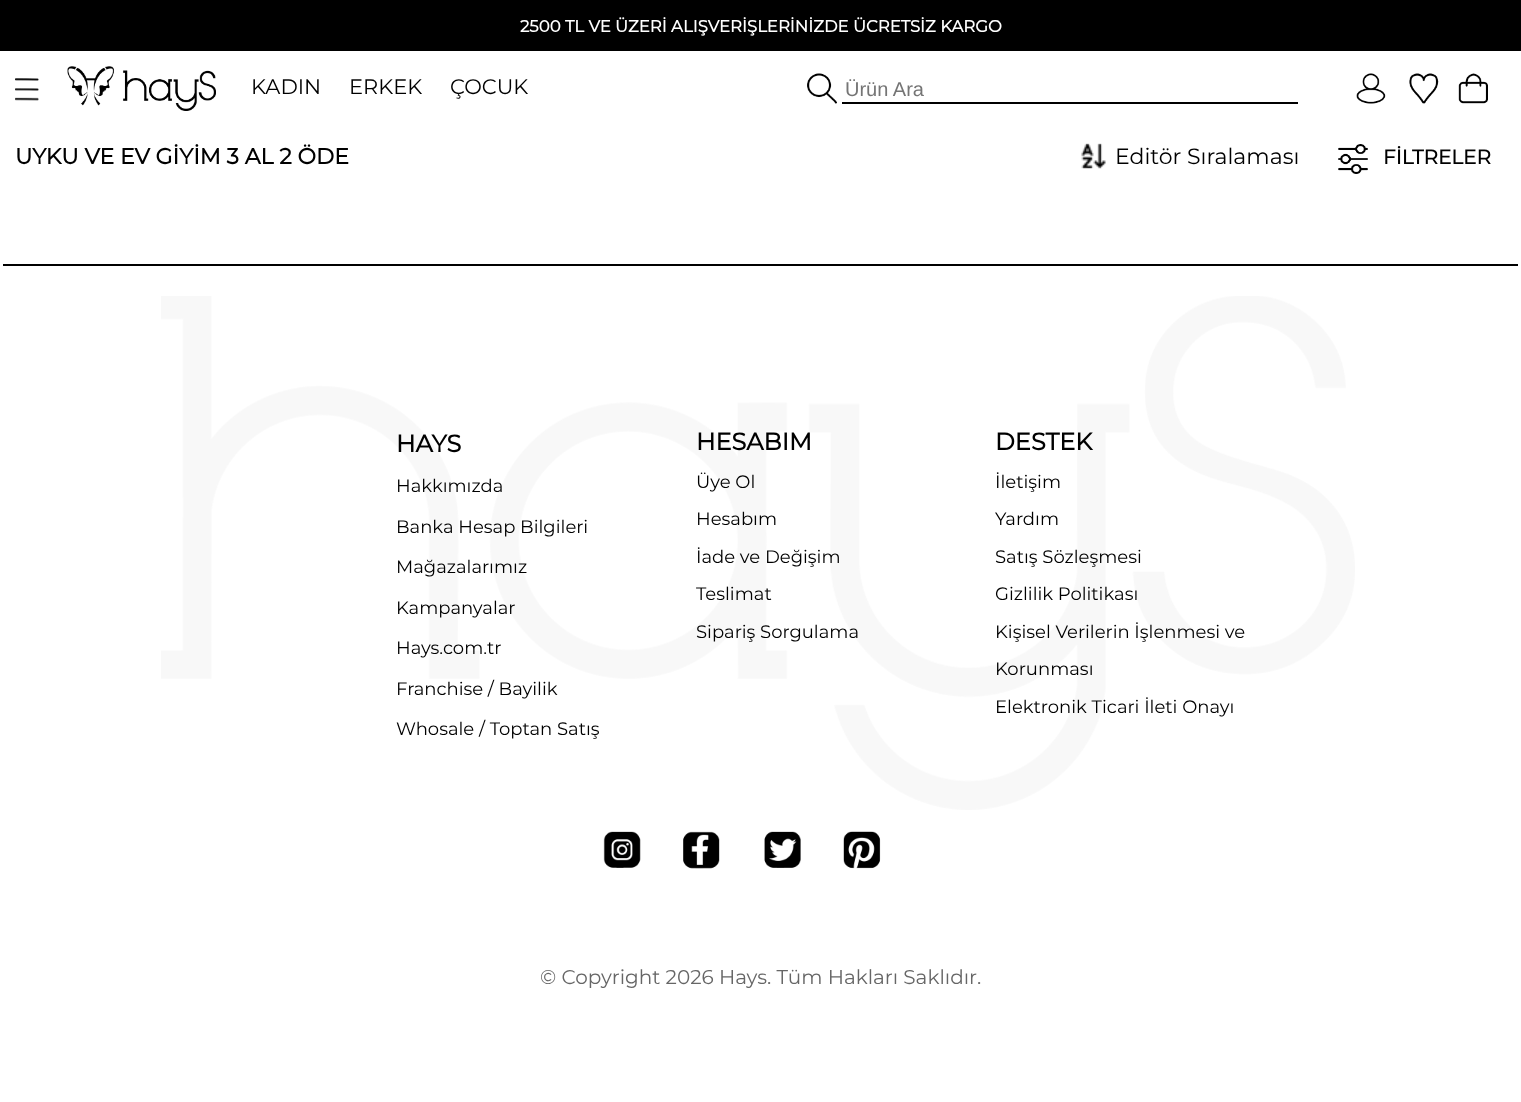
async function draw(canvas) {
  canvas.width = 1521
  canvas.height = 1102
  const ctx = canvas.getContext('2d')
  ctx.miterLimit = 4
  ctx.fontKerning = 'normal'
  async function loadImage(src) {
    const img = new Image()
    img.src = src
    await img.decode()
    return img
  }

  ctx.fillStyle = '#fff'
  ctx.fillRect(0, 0, 1521, 1102)
  ctx.fillStyle = '#000'
  ctx.fillRect(0, 0, 1521, 51)
  ctx.font = 'bold 16.5px Montserrat'
  ctx.fillStyle = '#fff'
  ctx.fillText('2500 TL VE ÜZERİ ALIŞVERİŞLERİNİZDE ÜCRETSİZ KARGO', 520, 32)
  ctx.drawImage(await loadImage('image0.png'), 15, 78, 24, 23)
  ctx.drawImage(await loadImage('image1.png'), 67, 66, 149, 45)
  ctx.font = '100 21px Montserrat'
  ctx.fillStyle = '#000'
  ctx.fillText('KADIN', 251, 94)
  ctx.fillText('ERKEK', 349, 94)
  ctx.fillText('ÇOCUK', 450, 94)
  ctx.drawImage(await loadImage('image2.png'), 807, 73, 30, 31)
  ctx.fillRect(842, 102, 456, 2)
  ctx.font = '20px Liberation Sans'
  ctx.fillStyle = '#757575'
  ctx.fillText('Ürün Ara', 845, 96)
  ctx.drawImage(await loadImage('image3.png'), 1356, 73, 30, 31)
  ctx.drawImage(await loadImage('image4.png'), 1409, 73, 30, 31)
  ctx.drawImage(await loadImage('image5.png'), 1458, 73, 30, 31)
  ctx.font = 'bold 22px Montserrat'
  ctx.fillStyle = '#000'
  ctx.fillText('UYKU VE EV GİYİM 3 AL 2 ÖDE', 15, 164)
  ctx.drawImage(await loadImage('image6.png'), 1081, 143, 25, 26)
  ctx.font = '100 22px Montserrat'
  ctx.fillText('Editör Sıralaması', 1115, 164)
  ctx.drawImage(await loadImage('image7.png'), 1338, 144, 30, 30)
  ctx.font = 'bold 20px Montserrat'
  ctx.fillText('FİLTRELER', 1383, 164)
  ctx.drawImage(await loadImage('image8.png'), 161, 296, 1194, 514)
  ctx.fillRect(3, 264, 1515, 2)
  ctx.font = 'bold 24px Montserrat'
  ctx.fillText('HAYS', 396, 452)
  ctx.font = '100 18px Montserrat'
  ctx.fillText('Hakkımızda', 396, 492)
  ctx.fillText('Banka Hesap Bilgileri', 396, 533)
  ctx.fillText('Mağazalarımız', 396, 573)
  ctx.fillText('Kampanyalar', 396, 614)
  ctx.fillText('Hays.com.tr', 396, 654)
  ctx.fillText('Franchise / Bayilik', 396, 695)
  ctx.fillText('Whosale / Toptan Satış', 396, 735)
  ctx.font = 'bold 24px Montserrat'
  ctx.fillText('HESABIM', 696, 450)
  ctx.font = '100 18px Montserrat'
  ctx.fillText('Üye Ol', 696, 488)
  ctx.fillText('Hesabım', 696, 525)
  ctx.fillText('İade ve Değişim', 696, 563)
  ctx.fillText('Teslimat', 696, 600)
  ctx.fillText('Sipariş Sorgulama', 696, 638)
  ctx.font = 'bold 24px Montserrat'
  ctx.fillText('DESTEK', 995, 450)
  ctx.font = '100 18px Montserrat'
  ctx.fillText('İletişim', 995, 488)
  ctx.fillText('Yardım', 995, 525)
  ctx.fillText('Satış Sözleşmesi', 995, 563)
  ctx.fillText('Gizlilik Politikası', 995, 600)
  ctx.fillText('Kişisel Verilerin İşlenmesi ve', 995, 638)
  ctx.fillText('Korunması', 995, 675)
  ctx.fillText('Elektronik Ticari İleti Onayı', 995, 713)
  ctx.drawImage(await loadImage('image9.png'), 603, 831, 38, 37)
  ctx.drawImage(await loadImage('image10.png'), 683, 831, 37, 38)
  ctx.drawImage(await loadImage('image11.png'), 764, 831, 37, 37)
  ctx.drawImage(await loadImage('image12.png'), 843, 831, 38, 38)
  ctx.font = '100 20px Montserrat'
  ctx.fillStyle = '#666'
  ctx.fillText('© Copyright 2026 Hays. Tüm Hakları Saklıdır.', 540, 984)
}

draw(document.querySelector('canvas'))
